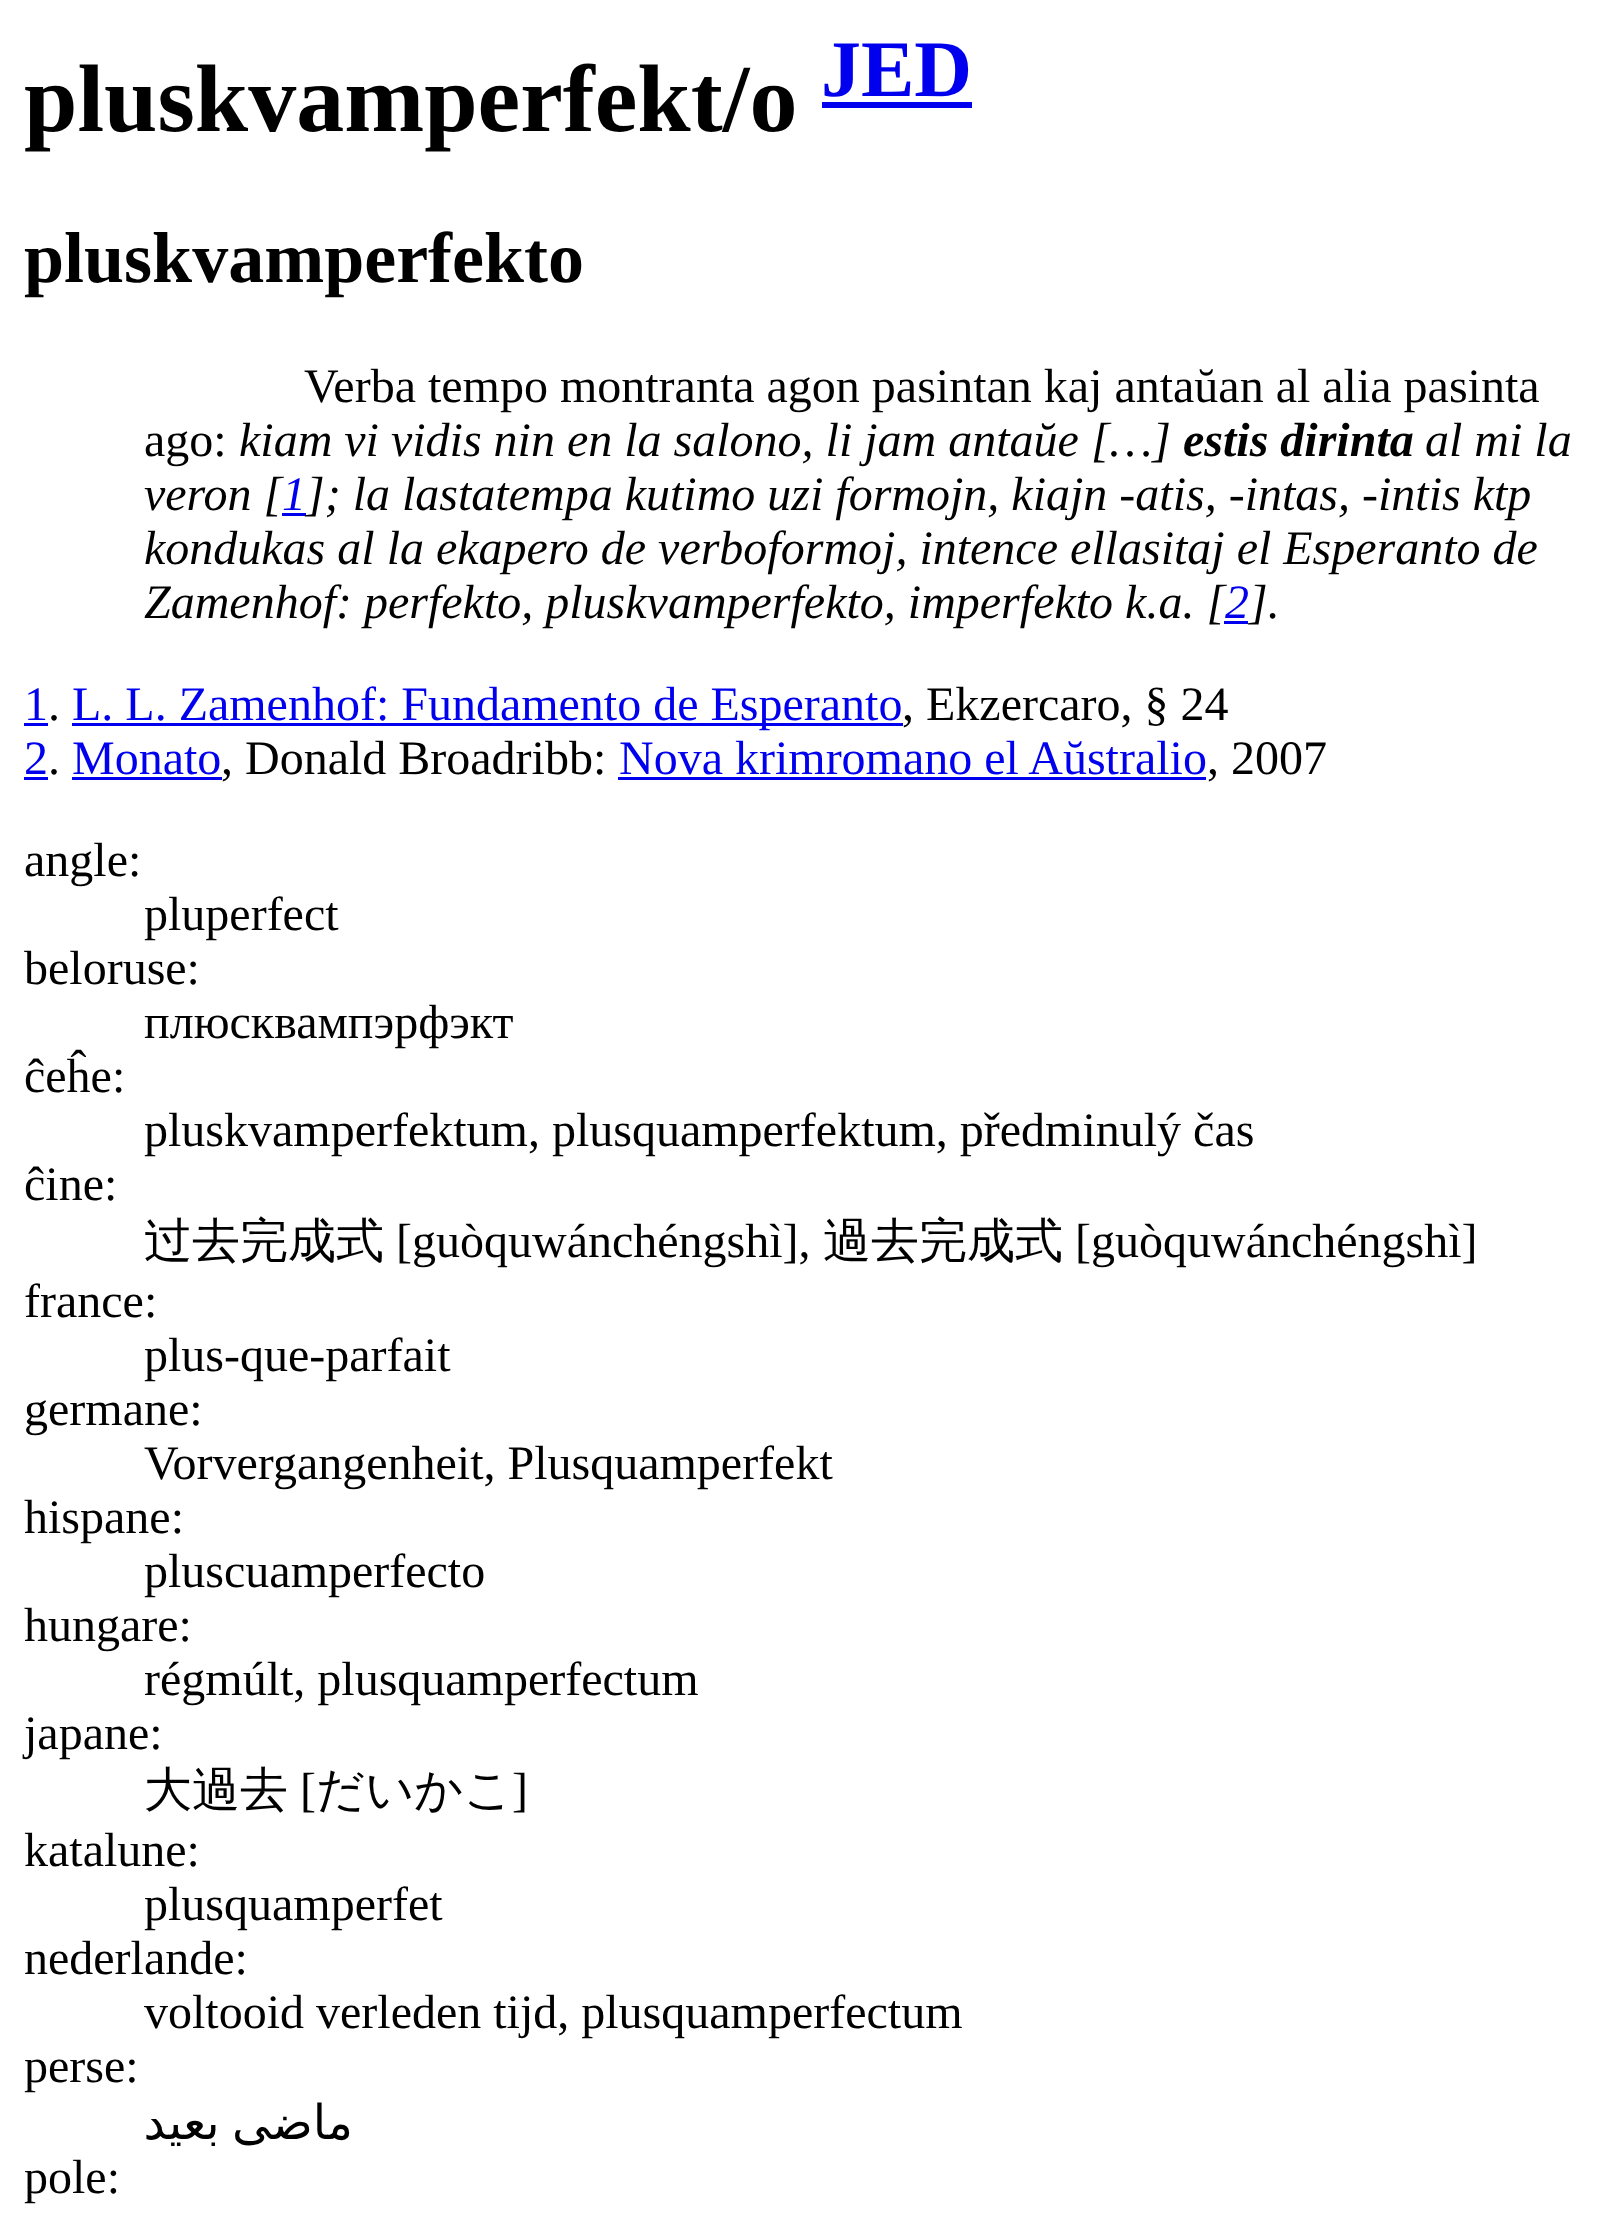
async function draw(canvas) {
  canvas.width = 1620
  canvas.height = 2229
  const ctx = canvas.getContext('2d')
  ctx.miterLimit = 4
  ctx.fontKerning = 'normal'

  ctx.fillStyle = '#fff'
  ctx.fillRect(0, 0, 1620, 2229)
  ctx.font = 'bold 96px Liberation Serif'
  ctx.fillStyle = '#000'
  ctx.fillText('pluskvamperfekt/o', 24, 131)
  ctx.font = 'bold 80px Liberation Serif'
  ctx.fillStyle = '#00e'
  ctx.fillText('JED', 821, 96)
  ctx.fillRect(822, 102, 150, 6)
  ctx.font = 'bold 72px Liberation Serif'
  ctx.fillStyle = '#000'
  ctx.fillText('pluskvamperfekto', 24, 282)
  ctx.font = '48px Liberation Serif'
  ctx.fillText('Verba tempo montranta agon pasintan kaj antaŭan al alia pasinta', 304, 402)
  ctx.fillText('ago:', 144, 456)
  ctx.font = 'italic 48px Liberation Serif'
  ctx.fillText('kiam vi vidis nin en la salono, li jam antaŭe […]', 239, 456)
  ctx.font = 'italic bold 48px Liberation Serif'
  ctx.fillText('estis dirinta', 1183, 456)
  ctx.font = 'italic 48px Liberation Serif'
  ctx.fillText('al mi la', 1425, 456)
  ctx.fillText('veron [', 144, 510)
  ctx.fillStyle = '#00e'
  ctx.fillText('1', 282, 510)
  ctx.fillRect(282, 513, 24, 3)
  ctx.fillStyle = '#000'
  ctx.fillText(']; la lastatempa kutimo uzi formojn, kiajn -atis, -intas, -intis ktp', 306, 510)
  ctx.fillText('kondukas al la ekapero de verboformoj, intence ellasitaj el Esperanto de', 144, 564)
  ctx.fillText('Zamenhof: perfekto, pluskvamperfekto, imperfekto k.a. [', 144, 618)
  ctx.fillStyle = '#00e'
  ctx.fillRect(1224, 621, 24, 3)
  ctx.fillText('2', 1225, 618)
  ctx.fillStyle = '#000'
  ctx.fillText('].', 1249, 618)
  ctx.font = '48px Liberation Serif'
  ctx.fillStyle = '#00e'
  ctx.fillText('1', 24, 720)
  ctx.fillStyle = '#000'
  ctx.fillText('.', 48, 720)
  ctx.fillStyle = '#00e'
  ctx.fillRect(24, 723, 24, 3)
  ctx.fillRect(72, 723, 831, 3)
  ctx.fillText('L. L. Zamenhof: Fundamento de Esperanto', 72, 720)
  ctx.fillStyle = '#000'
  ctx.fillText(', Ekzercaro, § 24', 902, 720)
  ctx.fillStyle = '#00e'
  ctx.fillText('2', 24, 774)
  ctx.fillStyle = '#000'
  ctx.fillText('.', 48, 774)
  ctx.fillStyle = '#00e'
  ctx.fillRect(24, 777, 24, 3)
  ctx.fillRect(72, 777, 150, 3)
  ctx.fillText('Monato', 72, 774)
  ctx.fillStyle = '#000'
  ctx.fillText(', Donald Broadribb:', 221, 774)
  ctx.fillStyle = '#00e'
  ctx.fillText('Nova krimromano el Aŭstralio', 619, 774)
  ctx.fillStyle = '#000'
  ctx.fillText(', 2007', 1207, 774)
  ctx.fillStyle = '#00e'
  ctx.fillRect(618, 777, 588, 3)
  ctx.fillStyle = '#000'
  ctx.fillText('angle:', 24, 876)
  ctx.fillText('pluperfect', 144, 930)
  ctx.fillText('beloruse:', 24, 984)
  ctx.fillText('плюсквампэрфэкт', 144, 1038)
  ctx.fillText('ĉeĥe:', 24, 1092)
  ctx.fillText('pluskvamperfektum, plusquamperfektum, předminulý čas', 144, 1146)
  ctx.fillText('ĉine:', 24, 1200)
  ctx.font = '500 48px WenQuanYi Zen Hei'
  ctx.fillText('过去完成式', 144, 1257)
  ctx.font = '48px Liberation Serif'
  ctx.fillText('[guòquwánchéngshì],', 396, 1257)
  ctx.font = '500 48px WenQuanYi Zen Hei'
  ctx.fillText('過去完成式', 823, 1257)
  ctx.font = '48px Liberation Serif'
  ctx.fillText('[guòquwánchéngshì]', 1075, 1257)
  ctx.fillText('france:', 24, 1317)
  ctx.fillText('plus-que-parfait', 144, 1371)
  ctx.fillText('germane:', 24, 1425)
  ctx.fillText('Vorvergangenheit, Plusquamperfekt', 144, 1479)
  ctx.fillText('hispane:', 24, 1533)
  ctx.fillText('pluscuamperfecto', 144, 1587)
  ctx.fillText('hungare:', 24, 1641)
  ctx.fillText('régmúlt, plusquamperfectum', 144, 1695)
  ctx.fillText('japane:', 24, 1749)
  ctx.font = '500 48px WenQuanYi Zen Hei'
  ctx.fillText('大過去', 144, 1806)
  ctx.font = '48px Liberation Serif'
  ctx.fillText('[', 300, 1806)
  ctx.font = '500 48px WenQuanYi Zen Hei'
  ctx.fillText('だいかこ', 316, 1806)
  ctx.font = '48px Liberation Serif'
  ctx.fillText(']', 512, 1806)
  ctx.fillText('katalune:', 24, 1866)
  ctx.fillText('plusquamperfet', 144, 1920)
  ctx.fillText('nederlande:', 24, 1974)
  ctx.fillText('voltooid verleden tijd, plusquamperfectum', 144, 2028)
  ctx.fillText('perse:', 24, 2082)
  ctx.wordSpacing = '-3px'
  ctx.direction = 'rtl'
  ctx.font = '48px DejaVu Sans'
  ctx.fillText('ماضی بعید', 353, 2139)
  ctx.wordSpacing = '0px'
  ctx.direction = 'ltr'
  ctx.font = '48px Liberation Serif'
  ctx.fillText('pole:', 24, 2193)
}

draw(document.querySelector('canvas'))
